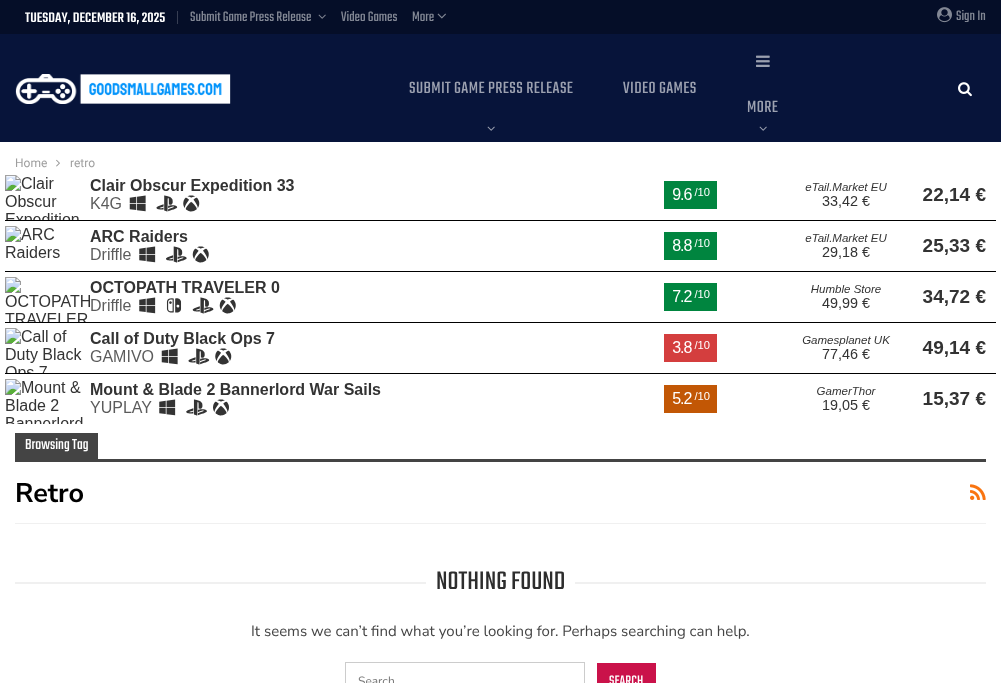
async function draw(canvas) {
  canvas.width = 1001
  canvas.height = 683
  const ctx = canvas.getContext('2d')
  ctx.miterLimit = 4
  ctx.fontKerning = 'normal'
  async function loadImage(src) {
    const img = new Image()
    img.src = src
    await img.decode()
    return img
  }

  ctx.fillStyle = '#fff'
  ctx.fillRect(0, 0, 1001, 683)
  ctx.fillStyle = '#050e28'
  ctx.fillRect(0, 0, 1001, 34)
  ctx.font = '500 15px Teko'
  ctx.fillStyle = '#fff'
  ctx.fillText('TUESDAY, DECEMBER 16, 2025', 25, 22)
  ctx.fillStyle = '#373e53'
  ctx.fillRect(177, 11, 1, 13)
  ctx.font = '15px Teko'
  ctx.fillStyle = '#828794'
  ctx.fillText('Submit Game Press Release', 190, 21)
  ctx.drawImage(await loadImage('image0.png'), 318, 14, 8, 5)
  ctx.fillText('Video Games', 341, 21)
  ctx.fillText('More', 412, 21)
  ctx.drawImage(await loadImage('image1.png'), 437, 13, 9, 6)
  ctx.drawImage(await loadImage('image2.png'), 937, 7, 15, 16)
  ctx.fillText('Sign In', 956, 20)
  ctx.fillStyle = '#07143a'
  ctx.fillRect(0, 34, 1001, 108)
  ctx.drawImage(await loadImage('image3.png'), 15, 74, 216, 30)
  ctx.letterSpacing = '0.4px'
  ctx.font = '18px Teko'
  ctx.fillStyle = '#9ca1b0'
  ctx.fillText('SUBMIT GAME PRESS RELEASE', 409, 93)
  ctx.drawImage(await loadImage('image4.png'), 487, 126, 8, 5)
  ctx.fillText('VIDEO GAMES', 623, 93)
  ctx.drawImage(await loadImage('image5.png'), 756, 55, 14, 12)
  ctx.fillText('MORE', 747, 112)
  ctx.drawImage(await loadImage('image4.png'), 759, 126, 8, 5)
  ctx.drawImage(await loadImage('image6.png'), 958, 82, 14, 15)
  ctx.letterSpacing = '0px'
  ctx.font = '12px Roboto'
  ctx.fillStyle = '#9e9e9e'
  ctx.fillText('Home', 15, 167)
  ctx.drawImage(await loadImage('image7.png'), 56, 159, 4, 8)
  ctx.fillText('retro', 70, 167)
  ctx.drawImage(await loadImage('image8.png'), 5, 175, 991, 249)
  ctx.fillStyle = '#f0f0f0'
  ctx.fillRect(15, 523, 971, 1)
  ctx.fillStyle = '#444'
  ctx.fillRect(15, 433, 83, 26)
  ctx.font = '16px Teko'
  ctx.fillStyle = '#fff'
  ctx.fillText('Browsing Tag', 25, 449)
  ctx.fillStyle = '#444'
  ctx.fillRect(15, 459, 971, 3)
  ctx.font = 'bold 27px Nunito Sans'
  ctx.fillStyle = '#000'
  ctx.fillText('Retro', 15, 502)
  ctx.drawImage(await loadImage('image9.png'), 970, 484, 16, 16)
  ctx.fillStyle = '#f0f0f0'
  ctx.fillRect(15, 582, 971, 2)
  ctx.fillStyle = '#fff'
  ctx.fillRect(426, 582, 149, 2)
  ctx.font = '28px Teko'
  ctx.fillStyle = '#2d2d2d'
  ctx.fillText('NOTHING FOUND', 436, 589)
  ctx.font = '15px Nunito Sans'
  ctx.fillStyle = '#454545'
  ctx.fillText('It seems we can’t find what you’re looking for. Perhaps searching can help.', 251, 636)
  ctx.strokeStyle = '#ccc'
  ctx.strokeRect(345.5, 662.5, 239, 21)
  ctx.font = '12px Nunito Sans'
  ctx.fillStyle = '#757575'
  ctx.fillText('Search', 358, 685)
  ctx.fillStyle = '#ca124a'
  ctx.fillRect(597, 663, 59, 20)
  ctx.font = '15px Teko'
  ctx.fillStyle = '#fff'
  ctx.fillText('SEARCH', 609, 685)
}

draw(document.querySelector('canvas'))
